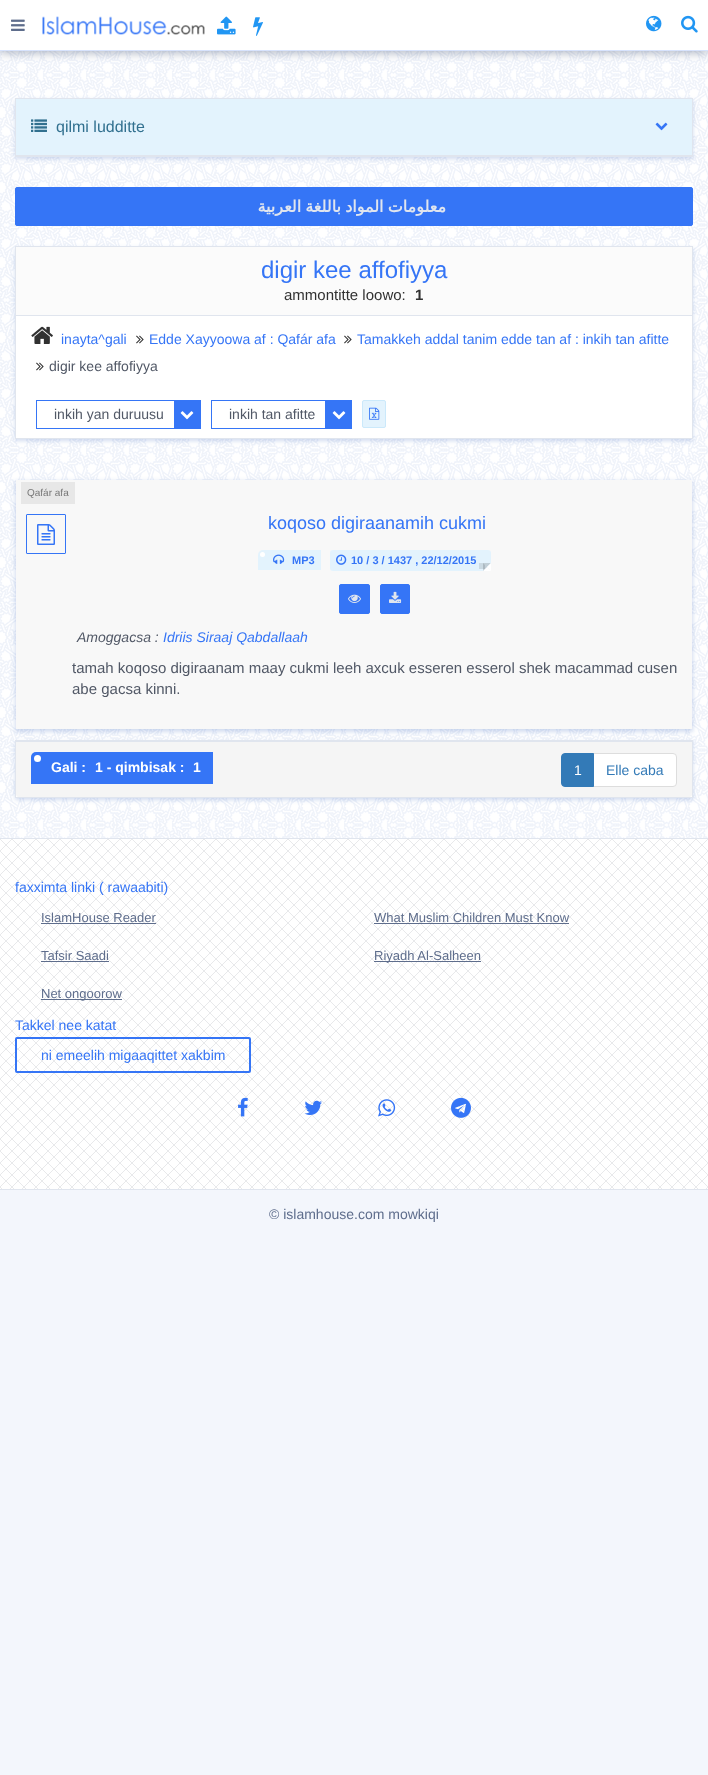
async function draw(canvas) {
  canvas.width = 708
  canvas.height = 1775
  const ctx = canvas.getContext('2d')
  ctx.miterLimit = 4
  ctx.fontKerning = 'normal'
  async function loadImage(src) {
    const img = new Image()
    img.src = src
    await img.decode()
    return img
  }

  ctx.fillStyle = '#f3f6fc'
  ctx.fillRect(0, 0, 708, 1775)
  ctx.drawImage(await loadImage('image6.png'), 0, 51, 708, 787)
  ctx.fillStyle = '#2d3e5f52'
  ctx.filter = 'blur(4px)'
  ctx.beginPath()
  ctx.rect(0, 3, 708, 51)
  ctx.fill()
  ctx.filter = 'none'
  ctx.fillStyle = '#fff'
  ctx.fillRect(0, 0, 708, 50)
  ctx.fillStyle = '#d7e3fd'
  ctx.fillRect(0, 50, 708, 1)
  ctx.drawImage(await loadImage('image0.png'), 11, 19, 14, 12)
  ctx.drawImage(await loadImage('image1.png'), 42, 16, 163, 19)
  ctx.drawImage(await loadImage('image2.png'), 217, 16, 19, 19)
  ctx.drawImage(await loadImage('image3.png'), 253, 17, 10, 19)
  ctx.drawImage(await loadImage('image4.png'), 646, 15, 16, 17)
  ctx.drawImage(await loadImage('image5.png'), 681, 15, 17, 18)
  ctx.fillStyle = '#1d4fb333'
  ctx.filter = 'blur(2px)'
  ctx.beginPath()
  ctx.rect(15, 100, 678, 59)
  ctx.fill()
  ctx.filter = 'none'
  ctx.strokeStyle = '#e0e5ee'
  ctx.strokeRect(15.5, 98.5, 677, 58)
  ctx.fillStyle = '#e3f3fd'
  ctx.fillRect(16, 99, 676, 56)
  ctx.fillStyle = '#e0e5ee'
  ctx.fillRect(16, 155, 676, 1)
  ctx.drawImage(await loadImage('image7.png'), 31, 119, 16, 13)
  ctx.font = '16px Liberation Sans'
  ctx.fillStyle = '#31708f'
  ctx.fillText('qilmi ludditte', 56, 132)
  ctx.drawImage(await loadImage('image8.png'), 655, 122, 13, 9)
  ctx.fillStyle = '#3575f6'
  ctx.beginPath()
  ctx.roundRect(15.5, 187.5, 677, 38, 1.5)
  ctx.fill()
  ctx.strokeStyle = '#3575f6'
  ctx.stroke()
  ctx.wordSpacing = '-1px'
  ctx.direction = 'rtl'
  ctx.font = 'bold 16px DejaVu Sans'
  ctx.fillStyle = '#e0e5ee'
  ctx.fillText('معلومات المواد باللغة العربية', 446, 212)
  ctx.fillStyle = '#1d4fb333'
  ctx.filter = 'blur(2px)'
  ctx.beginPath()
  ctx.rect(15, 248, 678, 193)
  ctx.fill()
  ctx.filter = 'none'
  ctx.fillStyle = '#fff'
  ctx.fillRect(16, 316, 676, 122)
  ctx.strokeStyle = '#e0e5ee'
  ctx.strokeRect(15.5, 246.5, 677, 192)
  ctx.fillStyle = '#fbfbfb'
  ctx.fillRect(16, 247, 676, 68)
  ctx.wordSpacing = '0px'
  ctx.direction = 'ltr'
  ctx.font = '24px Liberation Sans'
  ctx.fillStyle = '#3575f6'
  ctx.fillText('digir kee affofiyya', 261, 278)
  ctx.font = '15px Liberation Sans'
  ctx.fillStyle = '#313131'
  ctx.fillText('ammontitte loowo:', 284, 300)
  ctx.font = 'bold 15px Liberation Sans'
  ctx.fillText('1', 415, 300)
  ctx.fillStyle = '#e0e5ee'
  ctx.fillRect(16, 315, 676, 1)
  ctx.drawImage(await loadImage('image9.png'), 31, 326, 22, 18)
  ctx.font = '14px Liberation Sans'
  ctx.fillStyle = '#3575f6'
  ctx.fillText('inayta^gali', 61, 344)
  ctx.drawImage(await loadImage('image10.png'), 136, 335, 8, 9)
  ctx.fillText('Edde Xayyoowa af : Qafár afa', 149, 344)
  ctx.drawImage(await loadImage('image10.png'), 344, 335, 8, 9)
  ctx.fillText('Tamakkeh addal tanim edde tan af : inkih tan afitte', 357, 344)
  ctx.drawImage(await loadImage('image10.png'), 36, 362, 8, 9)
  ctx.fillStyle = '#515866'
  ctx.fillText('digir kee affofiyya', 49, 371)
  ctx.strokeStyle = '#3575f6'
  ctx.strokeRect(36.5, 400.5, 164, 28)
  ctx.fillText('inkih yan duruusu', 54, 419)
  ctx.fillStyle = '#3575f6'
  ctx.fillRect(174, 401, 26, 27)
  ctx.drawImage(await loadImage('image11.png'), 180, 411, 14, 9)
  ctx.strokeRect(211.5, 400.5, 140, 28)
  ctx.fillStyle = '#515866'
  ctx.fillText('inkih tan afitte', 229, 419)
  ctx.fillStyle = '#3575f6'
  ctx.fillRect(325, 401, 26, 27)
  ctx.drawImage(await loadImage('image11.png'), 332, 411, 14, 9)
  ctx.fillStyle = '#e3f3fd'
  ctx.beginPath()
  ctx.roundRect(362.5, 400.5, 23, 27, 1.5)
  ctx.fill()
  ctx.strokeStyle = '#cbe9fb'
  ctx.stroke()
  ctx.drawImage(await loadImage('image12.png'), 369, 407, 11, 13)
  ctx.fillStyle = '#1d4fb333'
  ctx.filter = 'blur(2px)'
  ctx.beginPath()
  ctx.rect(15, 481, 678, 251)
  ctx.fill()
  ctx.filter = 'none'
  ctx.fillStyle = '#f8f8f8'
  ctx.fillRect(16, 480, 676, 249)
  ctx.fillStyle = '#e7e7e7'
  ctx.fillRect(21, 482, 54, 22)
  ctx.font = '10px Liberation Sans'
  ctx.fillStyle = '#777'
  ctx.fillText('Qafár afa', 27, 496)
  ctx.beginPath()
  ctx.roundRect(26.5, 514.5, 39, 39, 0.5)
  ctx.strokeStyle = '#3575f6'
  ctx.stroke()
  ctx.drawImage(await loadImage('image13.png'), 37, 524, 18, 21)
  ctx.font = '18px Liberation Sans'
  ctx.fillStyle = '#3575f6'
  ctx.fillText('koqoso digiraanamih cukmi', 268, 529)
  ctx.fillStyle = '#e3f3fd'
  ctx.beginPath()
  ctx.roundRect(258, 550, 63, 20, [5, 0, 0, 0])
  ctx.fill()
  ctx.fillStyle = '#fff'
  ctx.beginPath()
  ctx.arc(262.5, 554.5, 2.5, 0, 2 * Math.PI)
  ctx.fill()
  ctx.drawImage(await loadImage('image14.png'), 273, 554, 12, 10)
  ctx.font = 'bold 11px Liberation Sans'
  ctx.fillStyle = '#3575f6'
  ctx.fillText('MP3', 292, 564)
  ctx.fillStyle = '#e3f3fd'
  ctx.beginPath()
  ctx.roundRect(330, 550, 161, 21, 3)
  ctx.fill()
  ctx.drawImage(await loadImage('image15.png'), 336, 554, 11, 11)
  ctx.fillStyle = '#3575f6'
  ctx.fillText('10 / 3 / 1437 , 22/12/2015', 351, 564)
  ctx.fillStyle = '#0000001a'
  ctx.filter = 'blur(0.5px)'
  ctx.beginPath()
  ctx.rect(479, 563, 6, 6)
  ctx.fill()
  ctx.filter = 'none'
  ctx.fillStyle = '#c1cfd7'
  ctx.beginPath()
  ctx.moveTo(483, 563)
  ctx.lineTo(491, 563)
  ctx.lineTo(487, 567)
  ctx.closePath()
  ctx.fill()
  ctx.fillStyle = '#fff'
  ctx.beginPath()
  ctx.moveTo(491, 563)
  ctx.lineTo(491, 571)
  ctx.lineTo(487, 567)
  ctx.closePath()
  ctx.fill()
  ctx.beginPath()
  ctx.moveTo(491, 571)
  ctx.lineTo(483, 571)
  ctx.lineTo(487, 567)
  ctx.closePath()
  ctx.fill()
  ctx.fillStyle = '#00000026'
  ctx.beginPath()
  ctx.moveTo(483, 571)
  ctx.lineTo(483, 563)
  ctx.lineTo(487, 567)
  ctx.closePath()
  ctx.fill()
  ctx.fillStyle = '#3575f6'
  ctx.beginPath()
  ctx.roundRect(339.5, 584.5, 30, 29, 1.5)
  ctx.fill()
  ctx.stroke()
  ctx.drawImage(await loadImage('image16.png'), 348, 594, 13, 9)
  ctx.beginPath()
  ctx.roundRect(380.5, 584.5, 29, 29, 1.5)
  ctx.fill()
  ctx.stroke()
  ctx.drawImage(await loadImage('image17.png'), 389, 591, 13, 12)
  ctx.font = 'italic 14px Liberation Sans'
  ctx.fillStyle = '#515866'
  ctx.fillText('Amoggacsa :', 77, 642)
  ctx.fillStyle = '#3575f6'
  ctx.fillText('Idriis Siraaj Qabdallaah', 163, 642)
  ctx.font = '15px Liberation Sans'
  ctx.fillStyle = '#515866'
  ctx.fillText('tamah koqoso digiraanam maay cukmi leeh axcuk esseren esserol shek macammad cusen', 72, 673)
  ctx.fillText('abe gacsa kinni.', 72, 694)
  ctx.fillStyle = '#1d4fb333'
  ctx.filter = 'blur(2px)'
  ctx.beginPath()
  ctx.rect(15, 742, 678, 58)
  ctx.fill()
  ctx.filter = 'none'
  ctx.fillStyle = '#fff'
  ctx.fillRect(16, 794, 676, 3)
  ctx.strokeStyle = '#e0e5ee'
  ctx.strokeRect(15.5, 740.5, 677, 57)
  ctx.fillStyle = '#f5f5f5'
  ctx.beginPath()
  ctx.roundRect(16, 741, 676, 56, [0, 0, 3, 3])
  ctx.fill()
  ctx.fillStyle = '#e0e5ee'
  ctx.fillRect(16, 741, 676, 1)
  ctx.fillStyle = '#3575f6'
  ctx.beginPath()
  ctx.roundRect(31, 752, 182, 32, [5, 0, 0, 0])
  ctx.fill()
  ctx.fillStyle = '#fff'
  ctx.beginPath()
  ctx.arc(37.5, 758.5, 3.5, 0, 2 * Math.PI)
  ctx.fill()
  ctx.font = 'bold 14px Liberation Sans'
  ctx.fillText('Gali :', 51, 772)
  ctx.fillText('1 - qimbisak :', 95, 772)
  ctx.fillText('1', 193, 772)
  ctx.beginPath()
  ctx.roundRect(593.5, 753.5, 83, 33, [0, 3.5, 3.5, 0])
  ctx.fill()
  ctx.strokeStyle = '#ddd'
  ctx.stroke()
  ctx.fillStyle = '#337ab7'
  ctx.beginPath()
  ctx.roundRect(561.5, 753.5, 32, 33, [3.5, 0, 0, 3.5])
  ctx.fill()
  ctx.strokeStyle = '#337ab7'
  ctx.stroke()
  ctx.font = '14px Liberation Sans'
  ctx.fillStyle = '#fff'
  ctx.fillText('1', 574, 775)
  ctx.fillStyle = '#337ab7'
  ctx.fillText('Elle caba', 606, 775)
  ctx.drawImage(await loadImage('image18.png'), 0, 839, 708, 350)
  ctx.fillStyle = '#e0e5ee'
  ctx.fillRect(0, 838, 708, 1)
  ctx.fillStyle = '#3575f6'
  ctx.fillText('faxximta linki ( rawaabiti)', 15, 892)
  ctx.font = '13px Liberation Sans'
  ctx.fillStyle = '#5e6d8c'
  ctx.fillText('IslamHouse Reader', 41, 922)
  ctx.fillRect(41, 923, 115, 1)
  ctx.fillText('What Muslim Children Must Know', 374, 922)
  ctx.fillRect(374, 923, 195, 1)
  ctx.fillText('Tafsir Saadi', 41, 960)
  ctx.fillRect(41, 961, 68, 1)
  ctx.fillRect(374, 961, 107, 1)
  ctx.fillText('Riyadh Al-Salheen', 374, 960)
  ctx.fillRect(41, 999, 81, 1)
  ctx.fillText('Net ongoorow', 41, 998)
  ctx.font = '14px Liberation Sans'
  ctx.fillStyle = '#3575f6'
  ctx.fillText('Takkel nee katat', 15, 1030)
  ctx.beginPath()
  ctx.roundRect(16, 1038, 234, 34, 1)
  ctx.strokeStyle = '#3575f6'
  ctx.lineWidth = 2
  ctx.stroke()
  ctx.fillText('ni emeelih migaaqittet xakbim', 41, 1060)
  ctx.drawImage(await loadImage('image19.png'), 238, 1097, 10, 20)
  ctx.drawImage(await loadImage('image20.png'), 304, 1100, 18, 15)
  ctx.drawImage(await loadImage('image21.png'), 378, 1099, 18, 18)
  ctx.drawImage(await loadImage('image22.png'), 451, 1097, 20, 21)
  ctx.fillStyle = '#e0e5ee'
  ctx.fillRect(0, 1189, 708, 1)
  ctx.fillStyle = '#5e6d8c'
  ctx.fillText('© islamhouse.com mowkiqi', 269, 1219)
}

draw(document.querySelector('canvas'))
